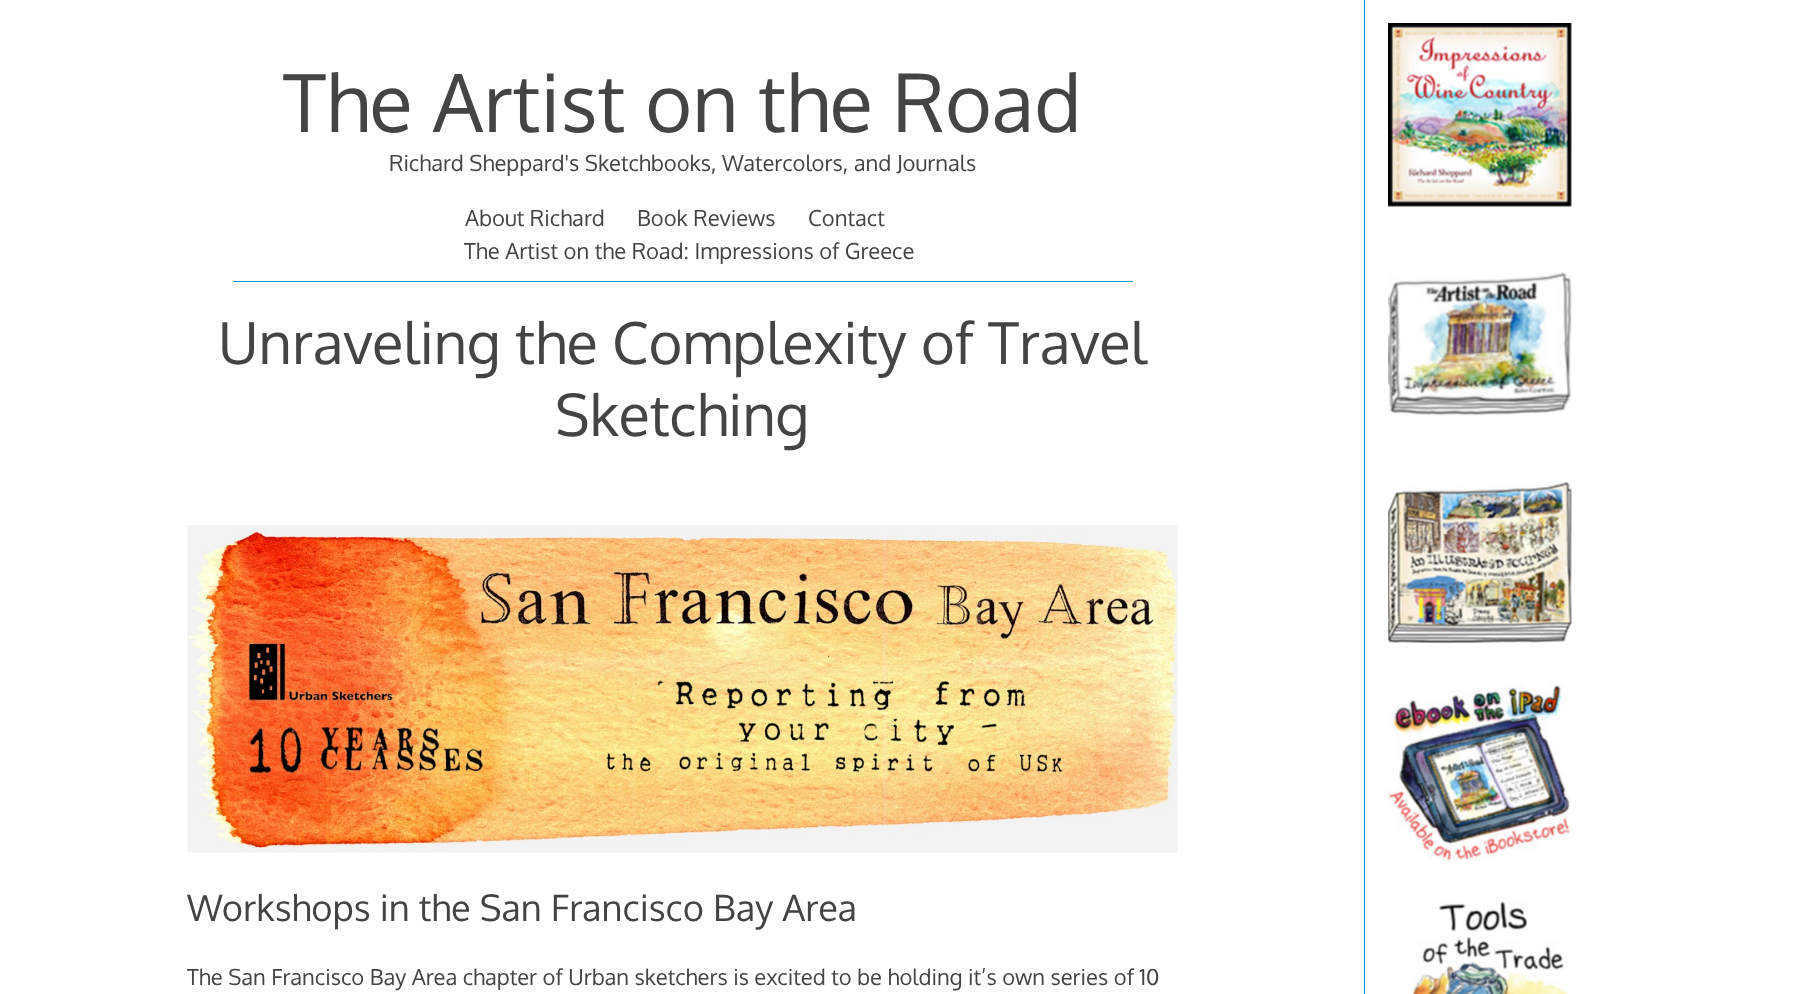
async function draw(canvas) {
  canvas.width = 1818
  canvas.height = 994
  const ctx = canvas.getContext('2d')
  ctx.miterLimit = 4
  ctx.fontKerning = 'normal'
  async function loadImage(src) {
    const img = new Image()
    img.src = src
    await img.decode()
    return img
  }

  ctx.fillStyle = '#fff'
  ctx.fillRect(0, 0, 1818, 994)
  ctx.fillStyle = '#009bcd'
  ctx.fillRect(233, 281, 900, 1)
  ctx.font = '80px Oxygen'
  ctx.fillStyle = '#444'
  ctx.fillText('The Artist on the Road', 283, 132)
  ctx.font = '22px Oxygen'
  ctx.fillText('Richard Sheppard\'s Sketchbooks, Watercolors, and Journals', 389, 171)
  ctx.fillText('About Richard', 465, 226)
  ctx.fillText('Book Reviews', 637, 226)
  ctx.fillText('Contact', 808, 226)
  ctx.fillText('The Artist on the Road: Impressions of Greece', 464, 259)
  ctx.font = '57.75px Oxygen'
  ctx.fillText('Unraveling the Complexity of Travel', 218, 364)
  ctx.fillText('Sketching', 555, 436)
  ctx.drawImage(await loadImage('image0.png'), 187, 525, 991, 328)
  ctx.font = '36.25px Oxygen'
  ctx.fillText('Workshops in the San Francisco Bay Area', 187, 921)
  ctx.font = '22px Oxygen'
  ctx.fillText('The San Francisco Bay Area chapter of Urban sketchers is excited to be holding it’s own series of 10', 187, 985)
  ctx.fillStyle = '#009bcd'
  ctx.fillRect(1364, 0, 1, 994)
  ctx.drawImage(await loadImage('image1.png'), 1388, 23, 184, 184)
  ctx.drawImage(await loadImage('image2.png'), 1388, 272, 184, 144)
  ctx.drawImage(await loadImage('image3.png'), 1388, 482, 184, 161)
  ctx.drawImage(await loadImage('image4.png'), 1388, 681, 182, 180)
  ctx.drawImage(await loadImage('image5.png'), 1412, 901, 157, 93)
}

draw(document.querySelector('canvas'))
